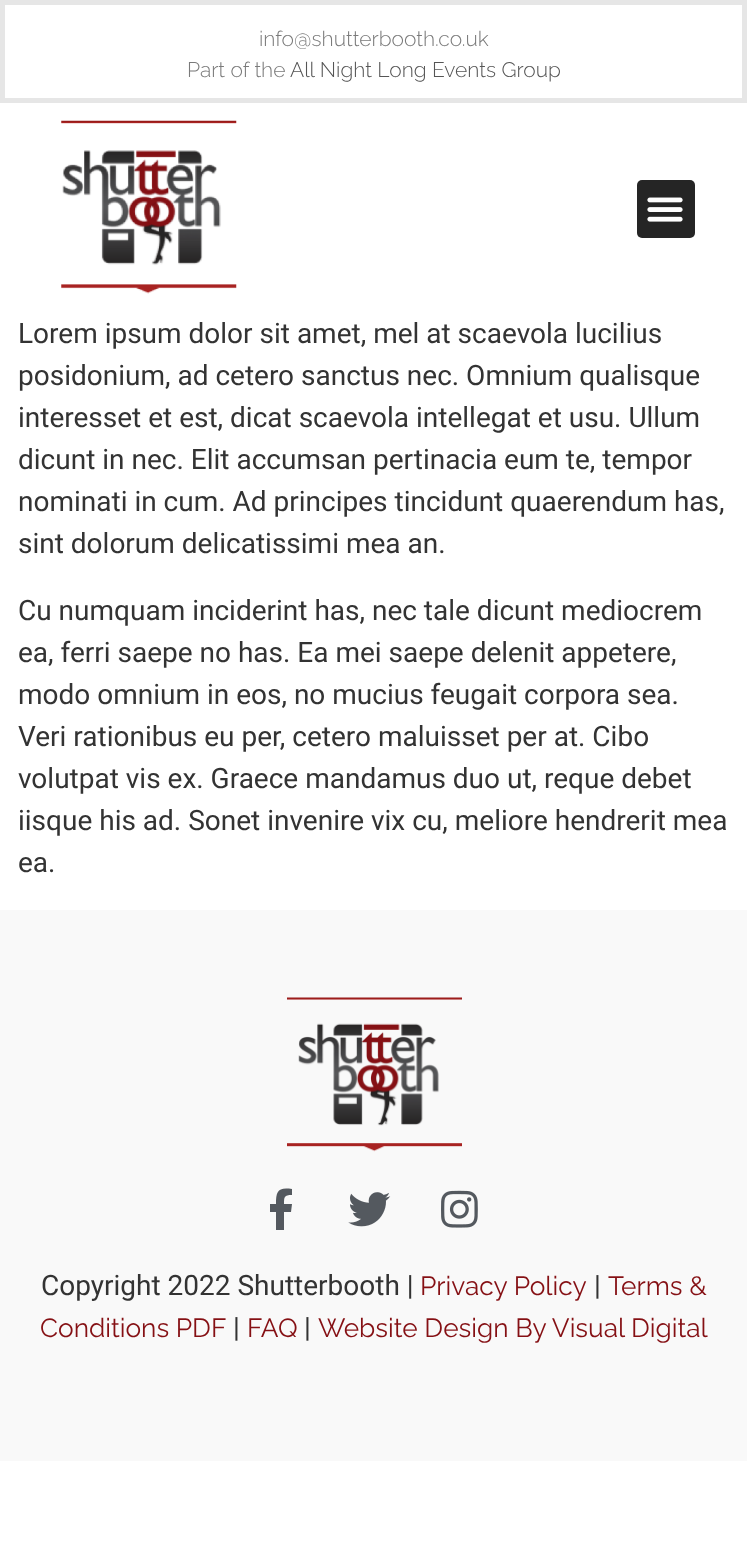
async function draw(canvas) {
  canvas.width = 747
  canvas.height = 1545
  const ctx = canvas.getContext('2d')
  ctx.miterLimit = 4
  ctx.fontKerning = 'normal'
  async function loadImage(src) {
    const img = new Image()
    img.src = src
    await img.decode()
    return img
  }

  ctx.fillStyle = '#fff'
  ctx.fillRect(0, 0, 747, 1545)
  ctx.strokeStyle = '#e6e6e6'
  ctx.lineWidth = 5
  ctx.strokeRect(2.5, 2.5, 742, 98)
  ctx.font = '300 21px Raleway'
  ctx.fillStyle = '#7a7a7a'
  ctx.fillText('info@shutterbooth.co.uk', 259, 46)
  ctx.fillText('Part of the', 187, 77)
  ctx.fillStyle = '#555'
  ctx.fillText('All Night Long Events Group', 290, 77)
  ctx.drawImage(await loadImage('image0.png'), 61, 120, 176, 174)
  ctx.fillStyle = '#252525'
  ctx.beginPath()
  ctx.roundRect(637, 180, 58, 58, 5)
  ctx.fill()
  ctx.drawImage(await loadImage('image1.png'), 647, 197, 36, 25)
  ctx.font = '28px Roboto'
  ctx.fillStyle = '#333'
  ctx.fillText('Lorem ipsum dolor sit amet, mel at scaevola lucilius', 18, 343)
  ctx.fillText('posidonium, ad cetero sanctus nec. Omnium qualisque', 18, 385)
  ctx.fillText('interesset et est, dicat scaevola intellegat et usu. Ullum', 18, 427)
  ctx.fillText('dicunt in nec. Elit accumsan pertinacia eum te, tempor', 18, 469)
  ctx.fillText('nominati in cum. Ad principes tincidunt quaerendum has,', 18, 511)
  ctx.fillText('sint dolorum delicatissimi mea an.', 18, 553)
  ctx.fillText('Cu numquam inciderint has, nec tale dicunt mediocrem', 18, 620)
  ctx.fillText('ea, ferri saepe no has. Ea mei saepe delenit appetere,', 18, 662)
  ctx.fillText('modo omnium in eos, no mucius feugait corpora sea.', 18, 704)
  ctx.fillText('Veri rationibus eu per, cetero maluisset per at. Cibo', 18, 746)
  ctx.fillText('volutpat vis ex. Graece mandamus duo ut, reque debet', 18, 788)
  ctx.fillText('iisque his ad. Sonet invenire vix cu, meliore hendrerit mea', 18, 830)
  ctx.fillText('ea.', 18, 872)
  ctx.fillStyle = '#f9f9f9'
  ctx.fillRect(0, 910, 747, 551)
  ctx.drawImage(await loadImage('image2.png'), 287, 997, 175, 155)
  ctx.fillStyle = '#54595f'
  ctx.beginPath()
  ctx.moveTo(291, 1212)
  ctx.lineTo(284, 1212)
  ctx.lineTo(284, 1230)
  ctx.lineTo(276, 1230)
  ctx.lineTo(276, 1212)
  ctx.lineTo(270, 1212)
  ctx.lineTo(270, 1204)
  ctx.lineTo(276, 1204)
  ctx.bezierCurveTo(276, 1191, 278, 1187, 292, 1189)
  ctx.lineTo(292, 1195)
  ctx.bezierCurveTo(284, 1195, 284, 1197, 284, 1204)
  ctx.lineTo(292, 1204)
  ctx.closePath()
  ctx.fill()
  ctx.drawImage(await loadImage('image3.png'), 348, 1192, 43, 35)
  ctx.drawImage(await loadImage('image4.png'), 441, 1190, 37, 38)
  ctx.fillStyle = '#333'
  ctx.fillText('Copyright 2022 Shutterbooth |', 41, 1295)
  ctx.font = '26.25px Raleway'
  ctx.fillStyle = '#851014'
  ctx.fillText('Privacy Policy', 420, 1295)
  ctx.font = '28px Roboto'
  ctx.fillStyle = '#333'
  ctx.fillText('|', 594, 1295)
  ctx.font = '26.25px Raleway'
  ctx.fillStyle = '#851014'
  ctx.fillText('Terms &', 608, 1295)
  ctx.fillText('Conditions PDF', 40, 1337)
  ctx.font = '28px Roboto'
  ctx.fillStyle = '#333'
  ctx.fillText('|', 233, 1337)
  ctx.font = '26.25px Raleway'
  ctx.fillStyle = '#851014'
  ctx.fillText('FAQ', 247, 1337)
  ctx.font = '28px Roboto'
  ctx.fillStyle = '#333'
  ctx.fillText('|', 304, 1337)
  ctx.font = '26.25px Raleway'
  ctx.fillStyle = '#851014'
  ctx.fillText('Website Design By Visual Digital', 318, 1337)
}

draw(document.querySelector('canvas'))
